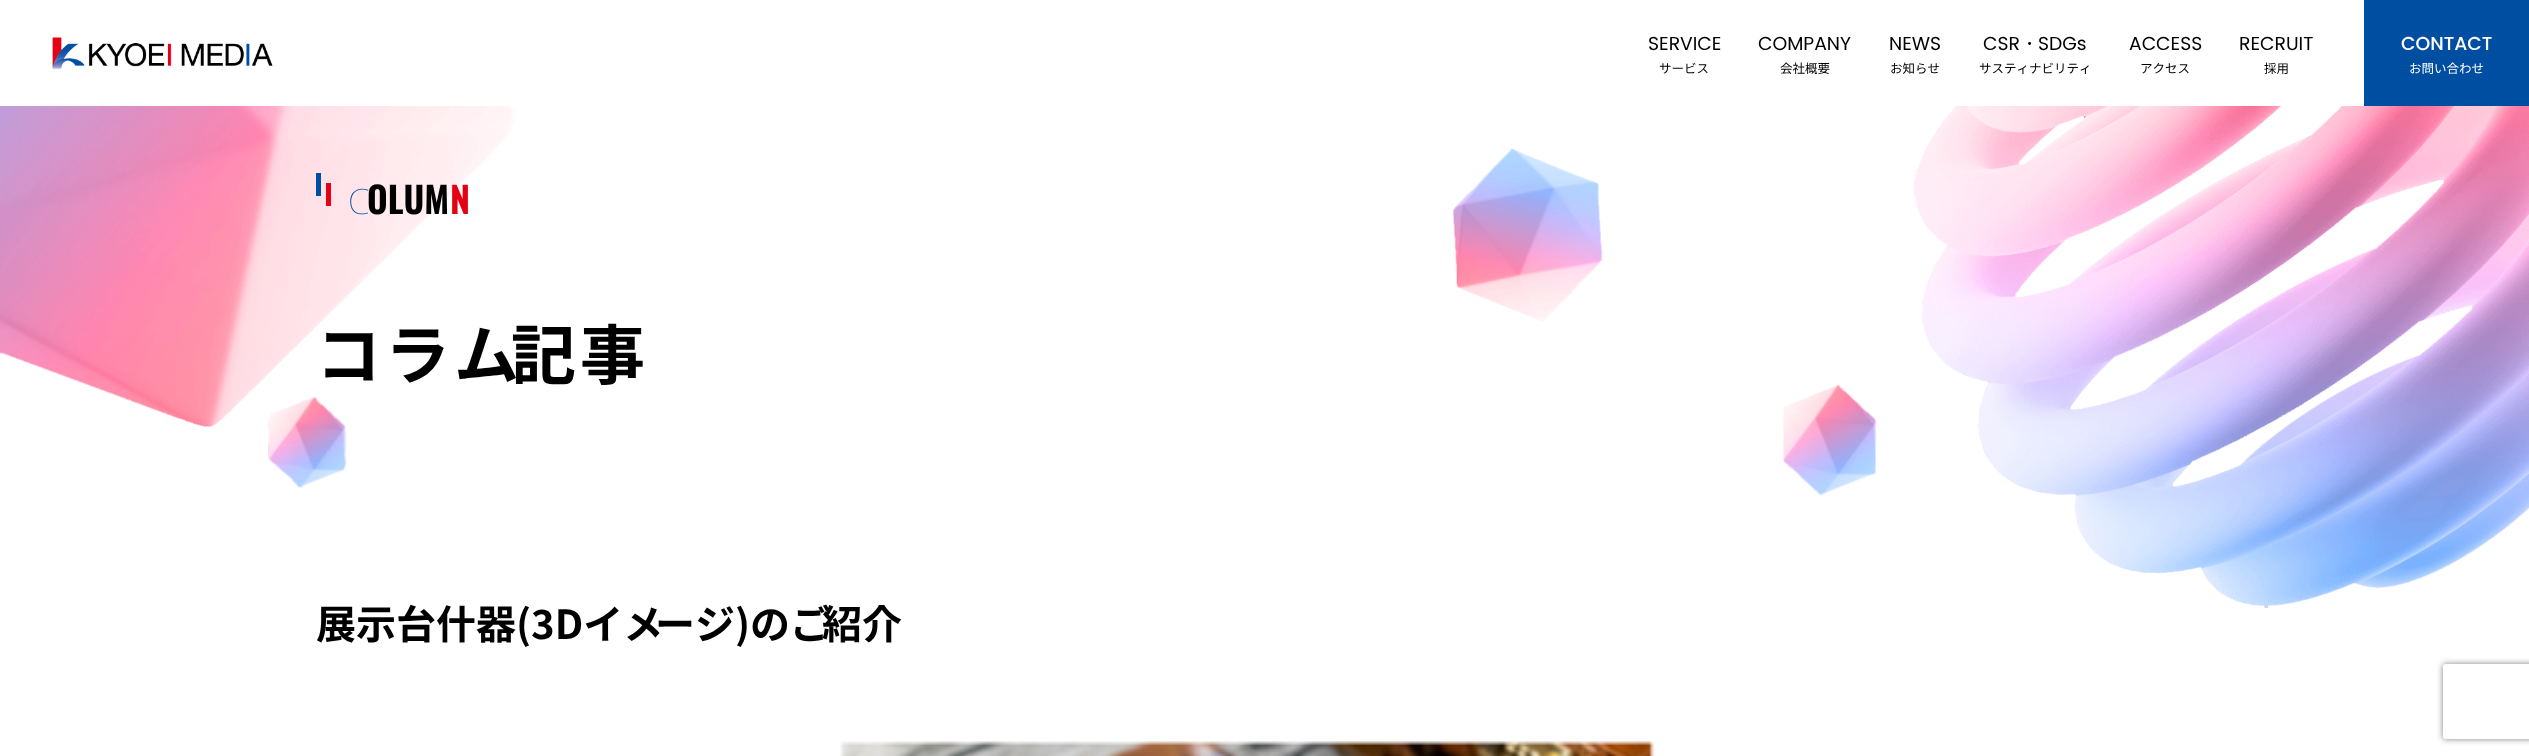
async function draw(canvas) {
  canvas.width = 2529
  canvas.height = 756
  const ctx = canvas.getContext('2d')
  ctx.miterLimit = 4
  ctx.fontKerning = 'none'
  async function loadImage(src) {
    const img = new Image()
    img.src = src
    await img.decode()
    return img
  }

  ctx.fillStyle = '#fff'
  ctx.fillRect(0, 0, 2529, 756)
  ctx.drawImage(await loadImage('image0.png'), 52, 37, 221, 32)
  ctx.font = '18.75px Poppins'
  ctx.fillStyle = '#000'
  ctx.fillText('SERVICE', 1648, 50)
  ctx.font = '12.5px Noto Sans JP'
  ctx.fillText('サービス', 1659, 73)
  ctx.font = '18.75px Poppins'
  ctx.fillText('COMPANY', 1758, 50)
  ctx.font = '12.5px Noto Sans JP'
  ctx.fillText('会社概要', 1780, 73)
  ctx.font = '18.75px Poppins'
  ctx.fillText('NEWS', 1889, 50)
  ctx.font = '12.5px Noto Sans JP'
  ctx.fillText('お知らせ', 1890, 73)
  ctx.font = '18.75px Poppins'
  ctx.fillText('CSR', 1983, 50)
  ctx.font = '500 18.75px WenQuanYi Zen Hei'
  ctx.fillText('・', 2020, 50)
  ctx.font = '18.75px Poppins'
  ctx.fillText('SDGs', 2038, 50)
  ctx.font = '12.5px Noto Sans JP'
  ctx.fillText('サスティナビリティ', 1979, 73)
  ctx.font = '18.75px Poppins'
  ctx.fillText('ACCESS', 2129, 50)
  ctx.font = '12.5px Noto Sans JP'
  ctx.fillText('アクセス', 2140, 73)
  ctx.font = '18.75px Poppins'
  ctx.fillText('RECRUIT', 2239, 50)
  ctx.font = '12.5px Noto Sans JP'
  ctx.fillText('採用', 2264, 73)
  ctx.fillStyle = '#004ea2'
  ctx.fillRect(2364, 0, 165, 106)
  ctx.font = '500 18.75px Poppins'
  ctx.fillStyle = '#fff'
  ctx.fillText('CONTACT', 2401, 50)
  ctx.font = '12.5px Noto Sans JP'
  ctx.fillText('お問い合わせ', 2409, 73)
  ctx.drawImage(await loadImage('image1.png'), 0, 106, 515, 321)
  ctx.drawImage(await loadImage('image2.png'), 1452, 148, 151, 173)
  ctx.drawImage(await loadImage('image3.png'), 1914, 106, 615, 502)
  ctx.drawImage(await loadImage('image4.png'), 268, 397, 79, 91)
  ctx.drawImage(await loadImage('image5.png'), 1783, 384, 94, 112)
  ctx.fillStyle = '#004ea2'
  ctx.fillRect(316, 173, 5, 23)
  ctx.fillStyle = '#e60013'
  ctx.fillRect(326, 183, 5, 23)
  ctx.letterSpacing = '1px'
  ctx.font = '100 35px Noto Sans'
  ctx.fillStyle = '#004ea2'
  ctx.fillText('C', 348, 214)
  ctx.font = 'bold 35px Oswald'
  ctx.fillStyle = '#000'
  ctx.fillText('OLUM', 367, 214)
  ctx.fillStyle = '#e60013'
  ctx.fillText('N', 450, 214)
  ctx.letterSpacing = '4px'
  ctx.font = 'bold 65px Noto Sans JP'
  ctx.fillStyle = '#000'
  ctx.fillText('コラム', 316, 379)
  ctx.fillText('記事', 511, 379)
  ctx.letterSpacing = '0px'
  ctx.font = 'bold 40px Noto Sans JP'
  ctx.fillText('展示台什器(3Dイメ', 316, 639)
  ctx.fillText('ージ)のご', 655, 639)
  ctx.fillText('紹介', 822, 639)
  ctx.drawImage(await loadImage('image6.png'), 840, 741, 816, 15)
  ctx.save()
  ctx.beginPath()
  ctx.moveTo(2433, 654)
  ctx.lineTo(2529, 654)
  ctx.lineTo(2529, 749)
  ctx.lineTo(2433, 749)
  ctx.closePath()
  ctx.moveTo(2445.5, 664)
  ctx.lineTo(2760.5, 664)
  ctx.bezierCurveTo(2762, 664, 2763, 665, 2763, 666.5)
  ctx.lineTo(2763, 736.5)
  ctx.bezierCurveTo(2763, 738, 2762, 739, 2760.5, 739)
  ctx.lineTo(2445.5, 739)
  ctx.bezierCurveTo(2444, 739, 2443, 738, 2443, 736.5)
  ctx.lineTo(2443, 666.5)
  ctx.bezierCurveTo(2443, 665, 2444, 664, 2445.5, 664)
  ctx.closePath()
  ctx.clip('evenodd')
  ctx.fillStyle = '#808080'
  ctx.filter = 'blur(3px)'
  ctx.beginPath()
  ctx.roundRect(2443, 664, 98, 75, 2.5)
  ctx.fill()
  ctx.filter = 'none'
  ctx.restore()
}

draw(document.querySelector('canvas'))
